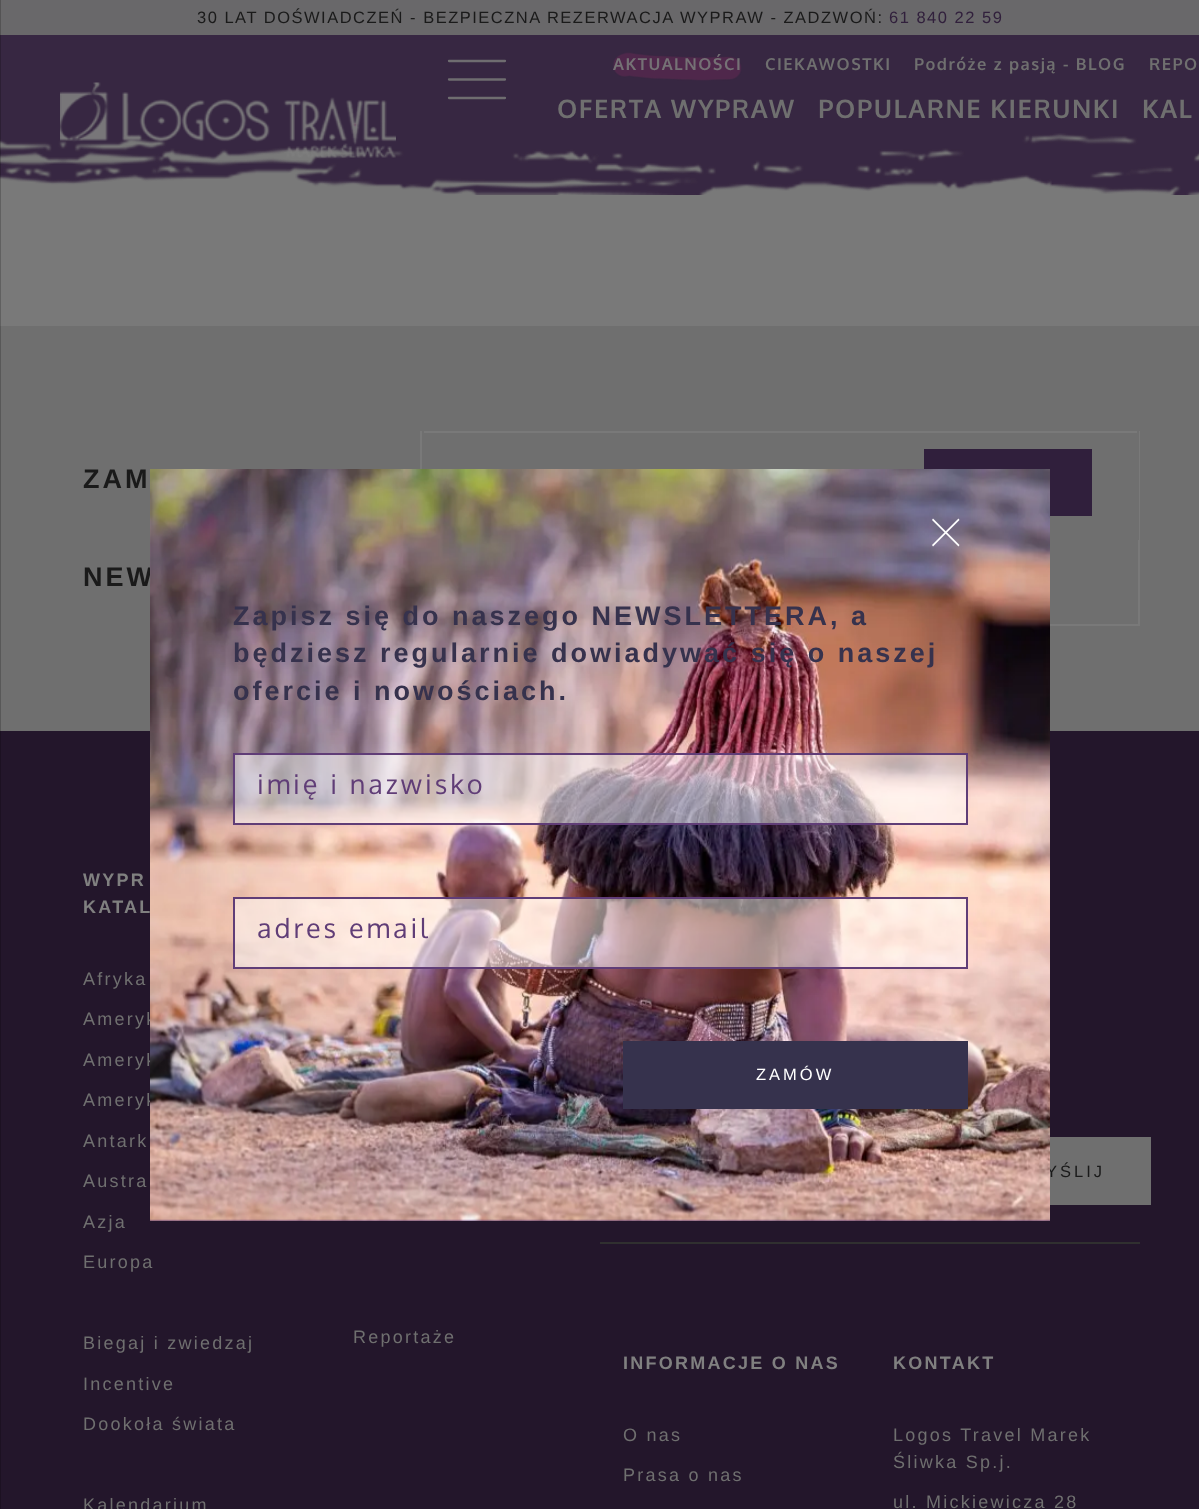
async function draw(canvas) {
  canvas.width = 1199
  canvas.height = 1509
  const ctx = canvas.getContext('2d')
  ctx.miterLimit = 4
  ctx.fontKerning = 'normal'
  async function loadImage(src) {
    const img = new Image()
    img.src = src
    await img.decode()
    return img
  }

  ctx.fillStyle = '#797979'
  ctx.fillRect(0, 0, 1199, 1509)
  ctx.drawImage(await loadImage('image0.png'), 0, 35, 1199, 160)
  ctx.fillStyle = '#69686a'
  ctx.fillRect(0, 0, 1199, 35)
  ctx.fillStyle = '#6f6f6f'
  ctx.fillRect(0, 326, 1199, 405)
  ctx.fillStyle = '#23162b'
  ctx.fillRect(0, 731, 1199, 778)
  ctx.fillStyle = '#00000033'
  ctx.fillRect(0, 0, 1, 1509)
  ctx.letterSpacing = '1.5px'
  ctx.font = '16.5px Liberation Sans'
  ctx.fillStyle = '#1a1a1a'
  ctx.fillText('30 LAT DOŚWIADCZEŃ - BEZPIECZNA REZERWACJA WYPRAW - ZADZWOŃ:', 197, 23)
  ctx.fillStyle = '#31203c'
  ctx.fillText('61 840 22 59', 889, 23)
  ctx.drawImage(await loadImage('image1.png'), 60, 82, 336, 76)
  ctx.beginPath()
  ctx.moveTo(449, 61)
  ctx.lineTo(505, 61)
  ctx.moveTo(449, 79.5)
  ctx.lineTo(505, 79.5)
  ctx.moveTo(449, 98)
  ctx.lineTo(505, 98)
  ctx.strokeStyle = '#767676e6'
  ctx.lineWidth = 2.3
  ctx.lineCap = 'round'
  ctx.stroke()
  ctx.drawImage(await loadImage('image2.png'), 613, 52, 129, 29)
  ctx.font = 'bold 16.5px Oxygen'
  ctx.fillStyle = '#757175'
  ctx.fillText('AKTUALNOŚCI', 613, 70)
  ctx.fillStyle = '#6f6f6f'
  ctx.fillText('CIEKAWOSTKI', 765, 70)
  ctx.fillText('Podróże z pasją - BLOG', 914, 70)
  ctx.fillText('REPO', 1149, 70)
  ctx.font = 'bold 25.5px Oxygen'
  ctx.fillText('OFERTA WYPRAW', 557, 118)
  ctx.fillText('POPULARNE KIERUNKI', 818, 118)
  ctx.fillText('KAL', 1142, 118)
  ctx.letterSpacing = '3px'
  ctx.font = 'bold 27px Liberation Sans'
  ctx.fillStyle = '#1a1a1a'
  ctx.fillText('ZAM', 83, 488)
  ctx.fillText('NEW', 83, 586)
  ctx.strokeStyle = '#797979'
  ctx.lineWidth = 2
  ctx.strokeRect(421, 432, 718, 193)
  ctx.strokeStyle = '#6f6f6f'
  ctx.strokeRect(423, 426, 715, 113)
  ctx.fillStyle = '#301f3c'
  ctx.fillRect(924, 449, 168, 67)
  ctx.fillStyle = '#603d77'
  ctx.fillRect(150, 1219, 900, 2)
  ctx.letterSpacing = '2.25px'
  ctx.font = '18px Liberation Sans'
  ctx.fillStyle = '#6f6f6f'
  ctx.fillText('Ameryk', 83, 1025)
  ctx.fillText('Ameryk', 83, 1066)
  ctx.fillText('Ameryk', 83, 1106)
  ctx.fillRect(1050, 1137, 101, 68)
  ctx.letterSpacing = '3px'
  ctx.font = '16.5px Liberation Sans'
  ctx.fillStyle = '#1a1a1a'
  ctx.fillText('YŚLIJ', 1046, 1177)
  ctx.drawImage(await loadImage('image3.png'), 150, 469, 900, 752)
  ctx.fillStyle = '#fff'
  ctx.beginPath()
  ctx.moveTo(958.5, 518.5)
  ctx.lineTo(959.5, 520)
  ctx.lineTo(933, 546.5)
  ctx.lineTo(932, 545)
  ctx.closePath()
  ctx.fill()
  ctx.beginPath()
  ctx.moveTo(932, 520)
  ctx.lineTo(933, 518.5)
  ctx.lineTo(959.5, 545)
  ctx.lineTo(958.5, 546.5)
  ctx.closePath()
  ctx.fill()
  ctx.font = 'bold 27px Liberation Sans'
  ctx.fillStyle = '#36324d'
  ctx.fillText('Zapisz się do naszego NEWSLETTERA, a', 233, 625)
  ctx.fillText('będziesz regularnie dowiadywać się o naszej', 233, 662)
  ctx.fillText('ofercie i nowościach.', 233, 700)
  ctx.fillStyle = '#ffffff80'
  ctx.beginPath()
  ctx.rect(234, 754, 733, 70)
  ctx.fill()
  ctx.strokeStyle = '#603d77'
  ctx.stroke()
  ctx.font = '27px Oxygen'
  ctx.fillStyle = '#603d77'
  ctx.fillText('imię i nazwisko', 257, 794)
  ctx.fillStyle = '#ffffff80'
  ctx.beginPath()
  ctx.rect(234, 898, 733, 70)
  ctx.fill()
  ctx.stroke()
  ctx.fillStyle = '#603d77'
  ctx.fillText('adres email', 257, 938)
  ctx.fillStyle = '#36324d'
  ctx.fillRect(623, 1041, 345, 68)
  ctx.font = '16.5px Liberation Sans'
  ctx.fillStyle = '#fff'
  ctx.fillText('ZAMÓW', 756, 1080)
  ctx.letterSpacing = '2.25px'
  ctx.font = 'bold 18px Liberation Sans'
  ctx.fillStyle = '#808080'
  ctx.fillText('WYPR', 83, 886)
  ctx.fillText('KATAL', 83, 913)
  ctx.font = '18px Liberation Sans'
  ctx.fillStyle = '#6f6f6f'
  ctx.fillText('Afryka', 83, 985)
  ctx.fillText('Antark', 83, 1147)
  ctx.fillText('Austra', 83, 1187)
  ctx.fillText('Azja', 83, 1228)
  ctx.fillText('Europa', 83, 1268)
  ctx.fillText('Biegaj i zwiedzaj', 83, 1349)
  ctx.fillText('Incentive', 83, 1390)
  ctx.fillText('Dookoła świata', 83, 1430)
  ctx.fillText('Kalendarium', 83, 1511)
  ctx.fillText('Reportaże', 353, 1343)
  ctx.fillStyle = '#303030'
  ctx.fillRect(600, 1242, 540, 2)
  ctx.font = 'bold 18px Liberation Sans'
  ctx.fillStyle = '#808080'
  ctx.fillText('INFORMACJE O NAS', 623, 1369)
  ctx.font = '18px Liberation Sans'
  ctx.fillStyle = '#6f6f6f'
  ctx.fillText('O nas', 623, 1441)
  ctx.fillText('Prasa o nas', 623, 1481)
  ctx.font = 'bold 18px Liberation Sans'
  ctx.fillStyle = '#808080'
  ctx.fillText('KONTAKT', 893, 1369)
  ctx.font = '18px Liberation Sans'
  ctx.fillStyle = '#6f6f6f'
  ctx.fillText('Logos Travel Marek', 893, 1441)
  ctx.fillText('Śliwka Sp.j.', 893, 1468)
  ctx.fillText('ul. Mickiewicza 28', 893, 1508)
}

draw(document.querySelector('canvas'))
